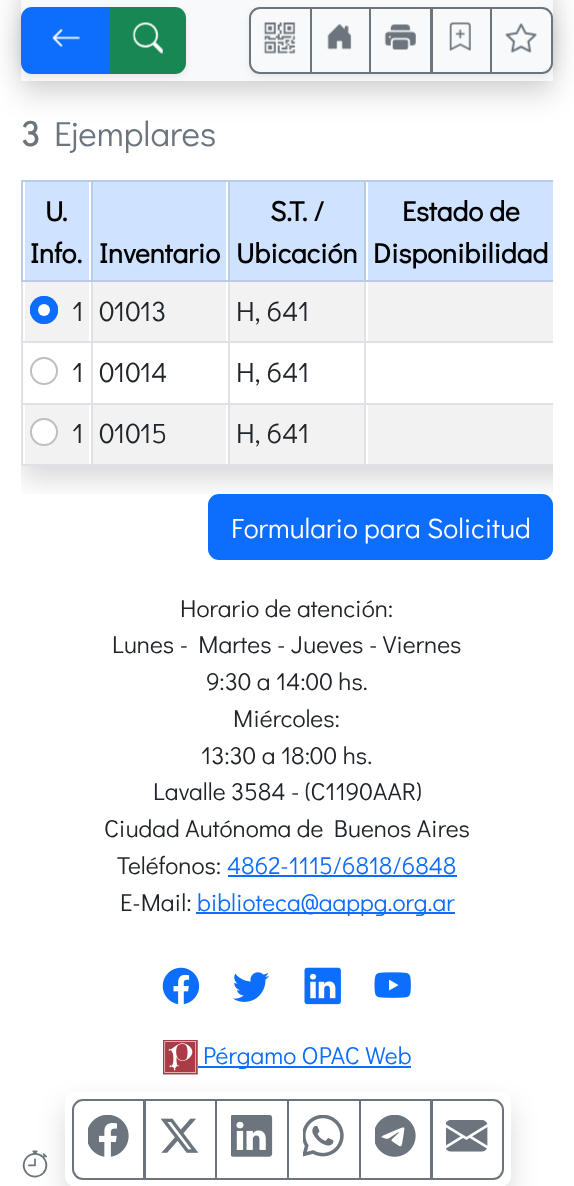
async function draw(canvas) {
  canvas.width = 574
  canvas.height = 1186
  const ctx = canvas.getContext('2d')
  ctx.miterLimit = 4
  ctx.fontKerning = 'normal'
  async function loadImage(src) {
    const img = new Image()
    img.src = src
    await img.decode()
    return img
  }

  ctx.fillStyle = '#fff'
  ctx.fillRect(0, 0, 574, 1186)
  ctx.fillStyle = '#00000026'
  ctx.filter = 'blur(14px)'
  ctx.beginPath()
  ctx.rect(21, -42, 532, 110)
  ctx.fill()
  ctx.filter = 'none'
  ctx.filter = 'blur(14px)'
  ctx.beginPath()
  ctx.rect(21, 14, 532, 81)
  ctx.fill()
  ctx.filter = 'none'
  ctx.fillStyle = '#0d6efd'
  ctx.beginPath()
  ctx.roundRect(209, 495, 343, 64, 10)
  ctx.fill()
  ctx.strokeStyle = '#0d6efd'
  ctx.lineWidth = 2
  ctx.stroke()
  ctx.save()
  ctx.beginPath()
  ctx.rect(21, 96, 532, 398)
  ctx.clip()
  ctx.beginPath()
  ctx.rect(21, 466, 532, 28)
  ctx.clip()
  ctx.fillStyle = '#00000026'
  ctx.filter = 'blur(14px)'
  ctx.beginPath()
  ctx.rect(21, 110, 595, 370)
  ctx.fill()
  ctx.filter = 'none'
  ctx.restore()
  ctx.fillStyle = '#f8f9fa'
  ctx.fillRect(21, 0, 532, 81)
  ctx.fillStyle = '#00000012'
  ctx.filter = 'blur(3.5px)'
  ctx.beginPath()
  ctx.roundRect(21, 11, 165, 66, 11)
  ctx.fill()
  ctx.filter = 'none'
  ctx.fillStyle = '#0d6efd'
  ctx.beginPath()
  ctx.roundRect(22, 8, 89, 65, [10, 0, 0, 10])
  ctx.fill()
  ctx.stroke()
  ctx.drawImage(await loadImage('image0.png'), 52, 28, 28, 19)
  ctx.fillStyle = '#198754'
  ctx.beginPath()
  ctx.roundRect(111, 8, 74, 65, [0, 10, 10, 0])
  ctx.fill()
  ctx.strokeStyle = '#198754'
  ctx.stroke()
  ctx.drawImage(await loadImage('image1.png'), 132, 22, 31, 32)
  ctx.save()
  ctx.beginPath()
  ctx.moveTo(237, 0)
  ctx.lineTo(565, 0)
  ctx.lineTo(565, 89)
  ctx.lineTo(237, 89)
  ctx.closePath()
  ctx.moveTo(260, 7)
  ctx.lineTo(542, 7)
  ctx.bezierCurveTo(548, 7, 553, 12, 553, 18)
  ctx.lineTo(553, 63)
  ctx.bezierCurveTo(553, 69, 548, 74, 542, 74)
  ctx.lineTo(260, 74)
  ctx.bezierCurveTo(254, 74, 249, 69, 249, 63)
  ctx.lineTo(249, 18)
  ctx.bezierCurveTo(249, 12, 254, 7, 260, 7)
  ctx.closePath()
  ctx.clip('evenodd')
  ctx.fillStyle = '#00000012'
  ctx.filter = 'blur(3.5px)'
  ctx.beginPath()
  ctx.roundRect(249, 11, 304, 66, 11)
  ctx.fill()
  ctx.filter = 'none'
  ctx.restore()
  ctx.beginPath()
  ctx.roundRect(250, 8, 61, 65, [10, 0, 0, 10])
  ctx.strokeStyle = '#6c757d'
  ctx.stroke()
  ctx.drawImage(await loadImage('image2.png'), 263, 22, 33, 32)
  ctx.strokeRect(311, 8, 59, 65)
  ctx.drawImage(await loadImage('image3.png'), 327, 23, 25, 27)
  ctx.strokeRect(370, 8, 61, 65)
  ctx.drawImage(await loadImage('image4.png'), 384, 24, 32, 26)
  ctx.strokeRect(432, 8, 59, 65)
  ctx.drawImage(await loadImage('image5.png'), 449, 22, 22, 29)
  ctx.beginPath()
  ctx.roundRect(491, 8, 61, 65, [0, 10, 10, 0])
  ctx.stroke()
  ctx.drawImage(await loadImage('image6.png'), 505, 23, 32, 30)
  ctx.font = 'bold 35px Didact Gothic'
  ctx.fillStyle = '#6c757d'
  ctx.fillText('3', 21, 146)
  ctx.font = '35px Didact Gothic'
  ctx.fillText('Ejemplares', 54, 146)
  ctx.fillStyle = '#bacbe6'
  ctx.fillRect(21, 180, 532, 2)
  ctx.fillRect(21, 280, 532, 2)
  ctx.fillStyle = '#cfe2ff'
  ctx.fillRect(25, 182, 64, 98)
  ctx.fillStyle = '#dee2e6'
  ctx.fillRect(21, 341, 532, 2)
  ctx.fillRect(21, 403, 532, 2)
  ctx.fillRect(21, 464, 532, 2)
  ctx.fillRect(21, 280, 2, 186)
  ctx.fillStyle = '#bacbe6'
  ctx.fillRect(21, 180, 2, 102)
  ctx.font = 'bold 28px Didact Gothic'
  ctx.fillStyle = '#000'
  ctx.fillText('U.', 45, 221)
  ctx.fillText('Info.', 30, 263)
  ctx.fillStyle = '#cfe2ff'
  ctx.fillRect(93, 182, 133, 98)
  ctx.fillStyle = '#dee2e6'
  ctx.fillRect(91, 280, 2, 186)
  ctx.fillStyle = '#bacbe6'
  ctx.fillRect(91, 180, 2, 102)
  ctx.fillStyle = '#000'
  ctx.fillText('Inventario', 99, 263)
  ctx.fillStyle = '#cfe2ff'
  ctx.fillRect(230, 182, 134, 98)
  ctx.fillStyle = '#dee2e6'
  ctx.fillRect(228, 280, 2, 186)
  ctx.fillStyle = '#bacbe6'
  ctx.fillRect(228, 180, 2, 102)
  ctx.fillStyle = '#000'
  ctx.fillText('S.T. /', 270, 221)
  ctx.fillText('Ubicación', 236, 263)
  ctx.fillStyle = '#cfe2ff'
  ctx.fillRect(368, 182, 185, 98)
  ctx.fillStyle = '#dee2e6'
  ctx.fillRect(364, 280, 2, 186)
  ctx.fillStyle = '#bacbe6'
  ctx.fillRect(364, 180, 2, 102)
  ctx.fillStyle = '#000'
  ctx.fillText('Estado de', 402, 221)
  ctx.fillText('Disponibilidad', 373, 263)
  ctx.fillStyle = '#f2f2f2'
  ctx.fillRect(25, 282, 64, 59)
  ctx.fillStyle = '#0d6efd'
  ctx.beginPath()
  ctx.arc(44, 310, 14, 0, 2 * Math.PI)
  ctx.fill()
  ctx.fillStyle = '#fff'
  ctx.beginPath()
  ctx.arc(44, 310, 6, 0, 2 * Math.PI)
  ctx.fill()
  ctx.beginPath()
  ctx.arc(44, 310, 13, 0, 2 * Math.PI)
  ctx.strokeStyle = '#0d6efd'
  ctx.stroke()
  ctx.font = '28px Didact Gothic'
  ctx.fillStyle = '#212529'
  ctx.fillText('1', 72, 321)
  ctx.fillStyle = '#f2f2f2'
  ctx.fillRect(93, 282, 133, 59)
  ctx.fillStyle = '#212529'
  ctx.fillText('01013', 99, 321)
  ctx.fillStyle = '#f2f2f2'
  ctx.fillRect(230, 282, 134, 59)
  ctx.fillStyle = '#212529'
  ctx.fillText('H, 641', 236, 321)
  ctx.fillStyle = '#f2f2f2'
  ctx.fillRect(368, 282, 185, 59)
  ctx.beginPath()
  ctx.arc(44, 371, 13, 0, 2 * Math.PI)
  ctx.strokeStyle = '#bfbfbf'
  ctx.stroke()
  ctx.fillStyle = '#212529'
  ctx.fillText('1', 72, 382)
  ctx.fillText('01014', 99, 382)
  ctx.fillText('H, 641', 236, 382)
  ctx.fillStyle = '#0000000d'
  ctx.fillRect(25, 405, 64, 59)
  ctx.fillStyle = '#fff'
  ctx.beginPath()
  ctx.arc(44, 432, 14, 0, 2 * Math.PI)
  ctx.fill()
  ctx.beginPath()
  ctx.arc(44, 432, 13, 0, 2 * Math.PI)
  ctx.strokeStyle = '#00000040'
  ctx.stroke()
  ctx.fillStyle = '#212529'
  ctx.fillText('1', 72, 443)
  ctx.fillStyle = '#0000000d'
  ctx.fillRect(93, 405, 133, 59)
  ctx.fillStyle = '#212529'
  ctx.fillText('01015', 99, 443)
  ctx.fillStyle = '#0000000d'
  ctx.fillRect(230, 405, 134, 59)
  ctx.fillStyle = '#212529'
  ctx.fillText('H, 641', 236, 443)
  ctx.fillStyle = '#0000000d'
  ctx.fillRect(368, 405, 185, 59)
  ctx.fillStyle = '#fff'
  ctx.fillText('Formulario para Solicitud', 231, 538)
  ctx.font = '24.5px Didact Gothic'
  ctx.fillStyle = '#212529'
  ctx.fillText('Horario de atención:', 180, 617)
  ctx.fillText('Lunes - Martes - Jueves - Viernes', 112, 653)
  ctx.fillText('9:30 a 14:00 hs.', 206, 690)
  ctx.fillText('Miércoles:', 233, 727)
  ctx.fillText('13:30 a 18:00 hs.', 201, 764)
  ctx.fillText('Lavalle 3584 - (C1190AAR)', 153, 800)
  ctx.fillText('Ciudad Autónoma de Buenos Aires', 104, 837)
  ctx.fillText('Teléfonos:', 117, 874)
  ctx.fillStyle = '#0d6efd'
  ctx.fillText('4862-1115/6818/6848', 227, 874)
  ctx.fillRect(228, 875, 229, 2)
  ctx.fillStyle = '#212529'
  ctx.fillText('E-Mail:', 120, 911)
  ctx.fillStyle = '#0d6efd'
  ctx.fillRect(196, 912, 259, 2)
  ctx.fillText('biblioteca@aappg.org.ar', 197, 911)
  ctx.drawImage(await loadImage('image7.png'), 162, 967, 38, 38)
  ctx.drawImage(await loadImage('image8.png'), 233, 972, 36, 30)
  ctx.drawImage(await loadImage('image9.png'), 304, 967, 37, 38)
  ctx.drawImage(await loadImage('image10.png'), 374, 972, 37, 26)
  ctx.drawImage(await loadImage('image11.png'), 163, 1040, 35, 35)
  ctx.fillRect(198, 1066, 213, 2)
  ctx.fillText('Pérgamo OPAC Web', 203, 1064)
  ctx.drawImage(await loadImage('image12.png'), 22, 1150, 26, 28)
  ctx.fillStyle = '#00000026'
  ctx.filter = 'blur(14px)'
  ctx.beginPath()
  ctx.roundRect(65, 1106, 446, 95, 11)
  ctx.fill()
  ctx.filter = 'none'
  ctx.fillStyle = '#fff'
  ctx.beginPath()
  ctx.roundRect(65, 1092, 446, 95, 11)
  ctx.fill()
  ctx.beginPath()
  ctx.roundRect(73, 1100, 71, 79, [10, 0, 0, 10])
  ctx.strokeStyle = '#6c757d'
  ctx.stroke()
  ctx.drawImage(await loadImage('image13.png'), 88, 1115, 41, 42)
  ctx.strokeRect(145, 1100, 71, 79)
  ctx.drawImage(await loadImage('image14.png'), 160, 1118, 39, 35)
  ctx.strokeRect(216, 1100, 72, 79)
  ctx.drawImage(await loadImage('image15.png'), 231, 1115, 42, 42)
  ctx.strokeRect(288, 1100, 72, 79)
  ctx.drawImage(await loadImage('image16.png'), 303, 1115, 41, 42)
  ctx.strokeRect(360, 1100, 71, 79)
  ctx.drawImage(await loadImage('image17.png'), 375, 1115, 41, 42)
  ctx.beginPath()
  ctx.roundRect(432, 1100, 71, 79, [0, 10, 10, 0])
  ctx.stroke()
  ctx.drawImage(await loadImage('image18.png'), 446, 1120, 42, 32)
}

draw(document.querySelector('canvas'))
